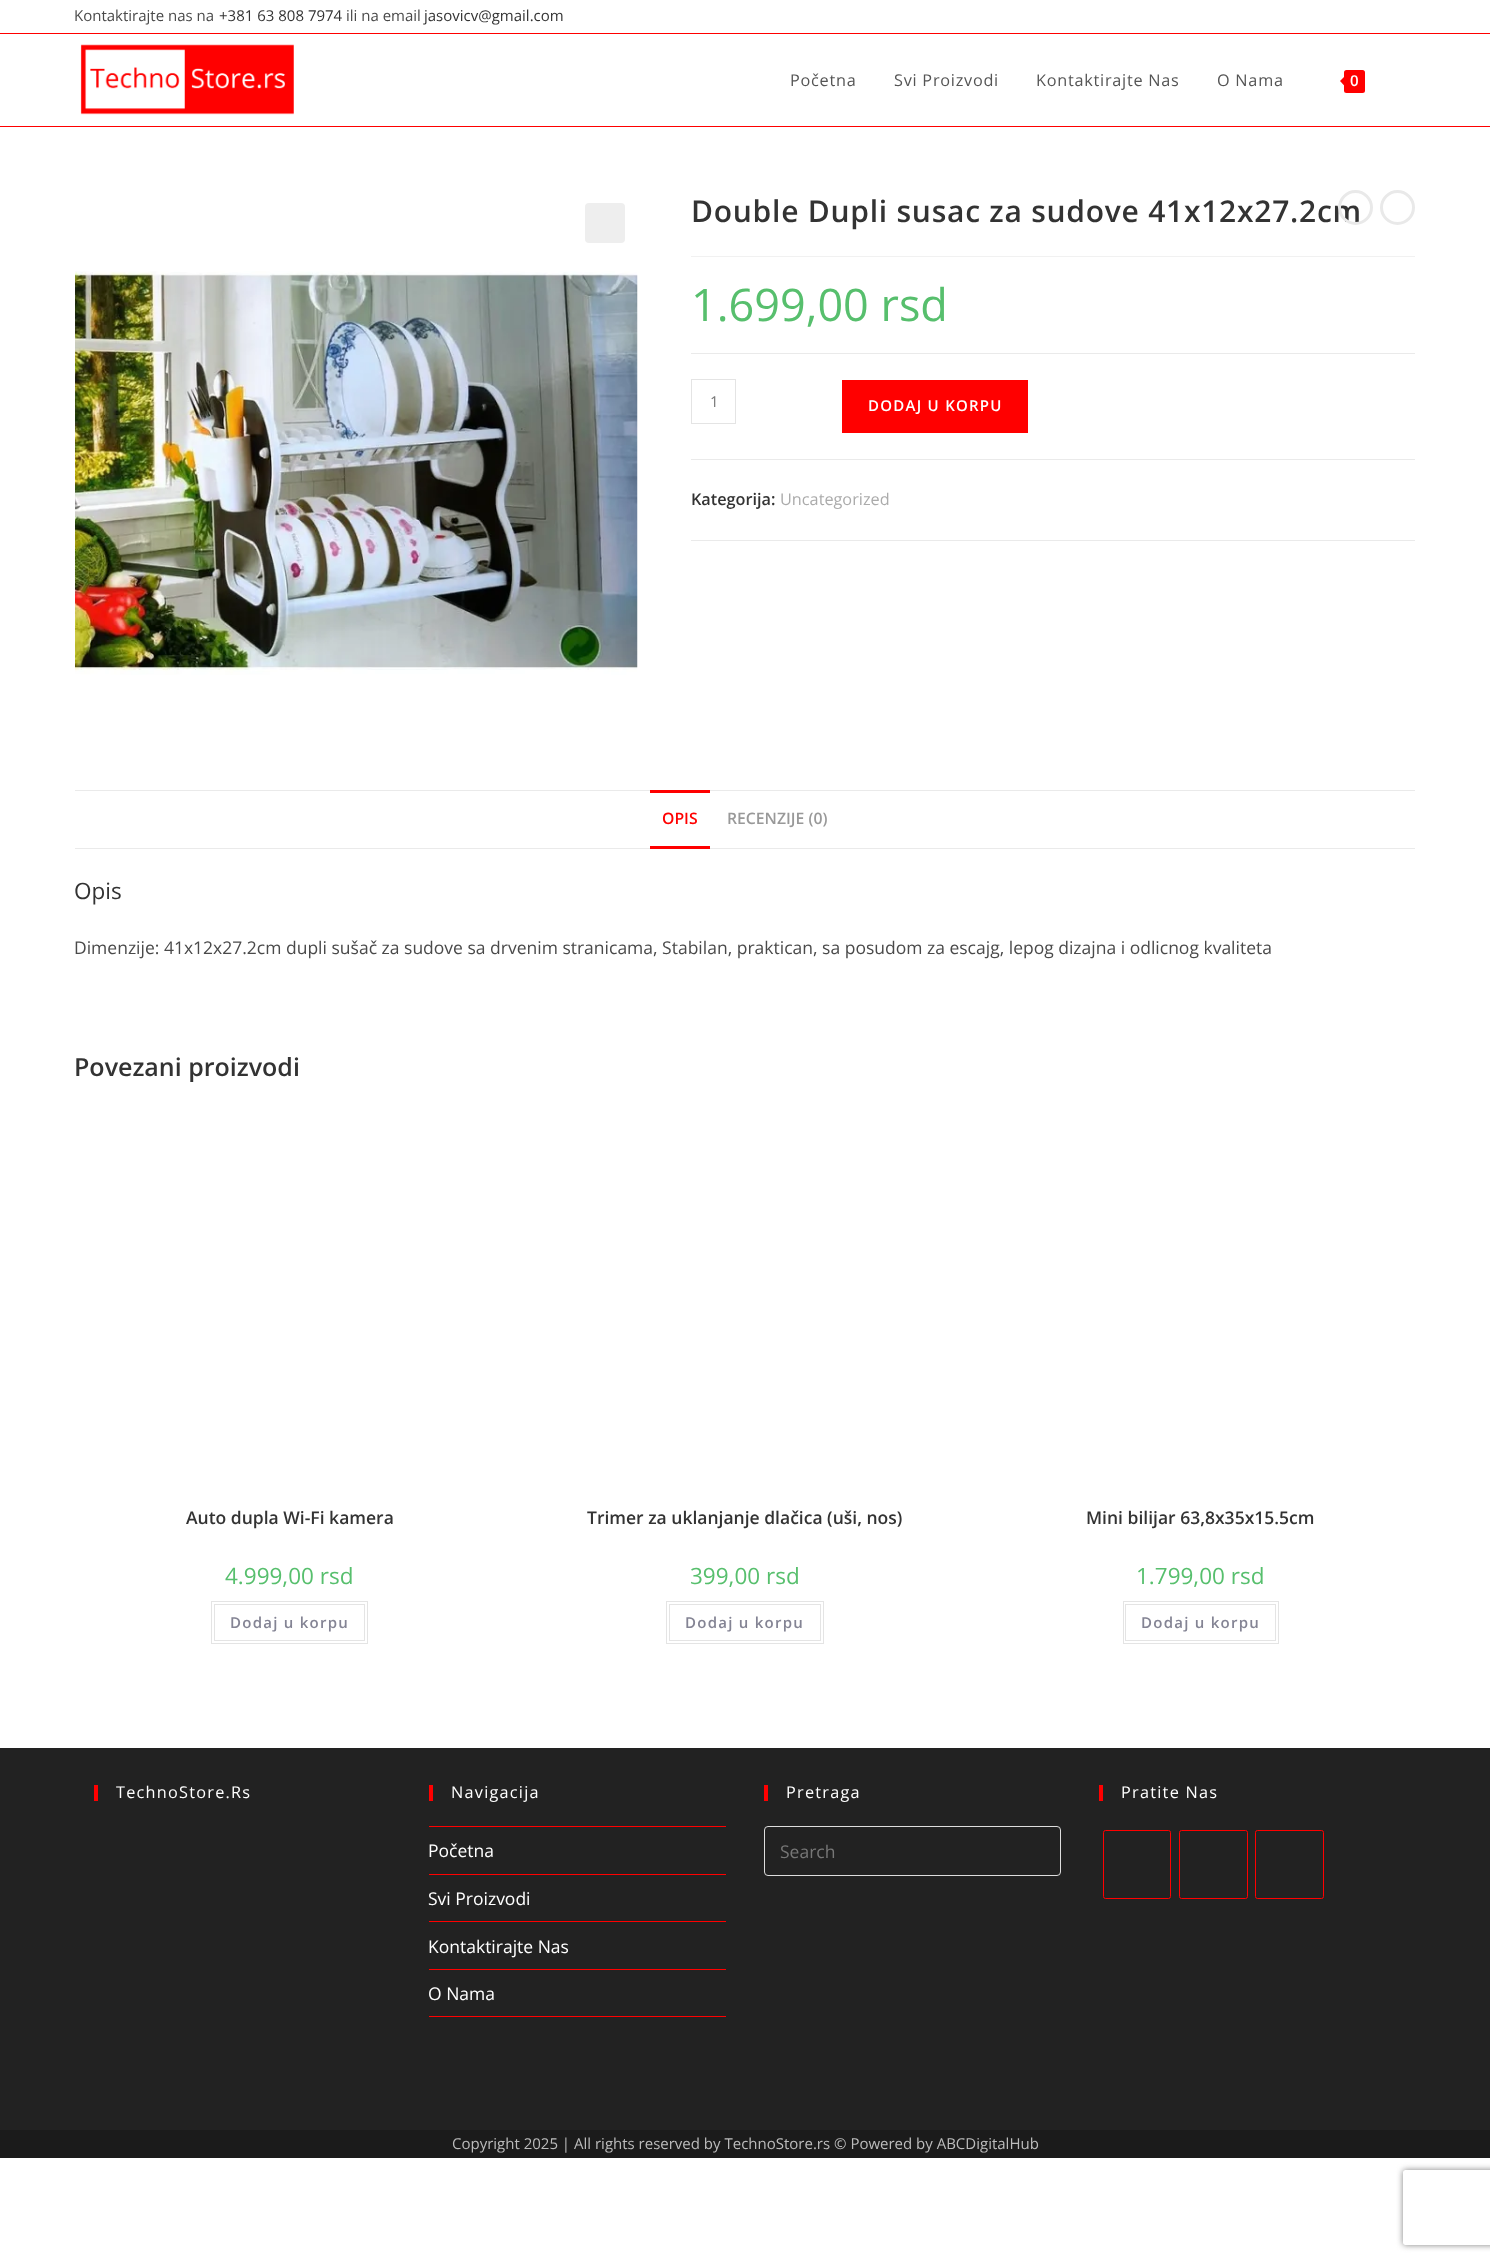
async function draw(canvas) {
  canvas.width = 1490
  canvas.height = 2262
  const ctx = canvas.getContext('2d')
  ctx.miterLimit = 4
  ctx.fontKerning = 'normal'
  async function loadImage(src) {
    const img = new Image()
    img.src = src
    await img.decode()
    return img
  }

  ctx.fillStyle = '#fff'
  ctx.fillRect(0, 0, 1490, 2262)
  ctx.fillStyle = '#f00'
  ctx.fillRect(0, 33, 1490, 1)
  ctx.font = '15px Open Sans'
  ctx.fillStyle = '#4a4a4a'
  ctx.fillText('Kontaktirajte nas na', 74, 21)
  ctx.fillStyle = '#333'
  ctx.fillText('+381 63 808 7974', 219, 21)
  ctx.fillStyle = '#4a4a4a'
  ctx.fillText('ili na email', 346, 21)
  ctx.fillStyle = '#333'
  ctx.fillText('jasovicv@gmail.com', 424, 21)
  ctx.fillStyle = '#f00'
  ctx.fillRect(0, 126, 1490, 1)
  ctx.drawImage(await loadImage('image0.png'), 80, 44, 214, 71)
  ctx.letterSpacing = '0.75px'
  ctx.font = '16.25px Open Sans'
  ctx.fillStyle = '#555'
  ctx.fillText('Početna', 790, 86)
  ctx.fillText('Svi Proizvodi', 894, 86)
  ctx.fillText('Kontaktirajte Nas', 1036, 86)
  ctx.fillText('O Nama', 1217, 86)
  ctx.fillStyle = '#f00'
  ctx.beginPath()
  ctx.roundRect(1344, 70, 21, 23, 2.5)
  ctx.fill()
  ctx.beginPath()
  ctx.moveTo(1346, 75)
  ctx.lineTo(1346, 87.5)
  ctx.lineTo(1340, 81)
  ctx.closePath()
  ctx.fill()
  ctx.letterSpacing = '0px'
  ctx.font = '600 15px Open Sans'
  ctx.fillStyle = '#fff'
  ctx.fillText('0', 1350, 86)
  ctx.fillStyle = '#eee'
  ctx.beginPath()
  ctx.roundRect(585, 203, 40, 40, 4)
  ctx.fill()
  ctx.drawImage(await loadImage('image1.png'), 75, 271, 563, 404)
  ctx.fillStyle = '#f1f1f1'
  ctx.fillRect(691, 256, 724, 1)
  ctx.letterSpacing = '0.75px'
  ctx.font = '600 30px Open Sans'
  ctx.fillStyle = '#333'
  ctx.fillText('Double Dupli susac za sudove 41x12x27.2cm', 691, 222)
  ctx.letterSpacing = '0px'
  ctx.font = '45px Open Sans'
  ctx.fillStyle = '#57bf6d'
  ctx.fillText('1.699,00 rsd', 691, 321)
  ctx.fillStyle = '#eaeaea'
  ctx.fillRect(691, 353, 724, 1)
  ctx.fillRect(691, 459, 724, 1)
  ctx.strokeStyle = '#e4e4e4'
  ctx.strokeRect(691.5, 379.5, 44, 44)
  ctx.font = '15px Open Sans'
  ctx.fillStyle = '#777'
  ctx.fillText('1', 710, 407)
  ctx.fillStyle = '#f00'
  ctx.fillRect(842, 380, 186, 53)
  ctx.letterSpacing = '1.25px'
  ctx.font = '600 15px Open Sans'
  ctx.fillStyle = '#fff'
  ctx.fillText('DODAJ U KORPU', 868, 411)
  ctx.fillStyle = '#eaeaea'
  ctx.fillRect(691, 540, 724, 1)
  ctx.letterSpacing = '0px'
  ctx.font = '600 16.25px Open Sans'
  ctx.fillStyle = '#333'
  ctx.fillText('Kategorija:', 691, 505)
  ctx.font = '16.25px Open Sans'
  ctx.fillStyle = '#ababab'
  ctx.fillText('Uncategorized', 780, 505)
  ctx.beginPath()
  ctx.arc(1355.5, 207.5, 16, 0, 2 * Math.PI)
  ctx.strokeStyle = '#e9e9e9'
  ctx.lineWidth = 3
  ctx.stroke()
  ctx.beginPath()
  ctx.arc(1397.5, 207.5, 16, 0, 2 * Math.PI)
  ctx.stroke()
  ctx.fillStyle = '#eaeaea'
  ctx.fillRect(75, 790, 1340, 1)
  ctx.fillRect(75, 848, 1340, 1)
  ctx.fillStyle = '#f00'
  ctx.fillRect(650, 790, 60, 3)
  ctx.fillRect(650, 846, 60, 3)
  ctx.font = '600 15.75px Open Sans'
  ctx.fillText('OPIS', 662, 824)
  ctx.fillStyle = '#999'
  ctx.fillText('RECENZIJE (0)', 727, 824)
  ctx.font = '22.5px Open Sans'
  ctx.fillStyle = '#333'
  ctx.fillText('Opis', 74, 899)
  ctx.font = '17.5px Open Sans'
  ctx.fillStyle = '#4a4a4a'
  ctx.fillText('Dimenzije: 41x12x27.2cm dupli sušač za sudove sa drvenim stranicama, Stabilan, praktican, sa posudom za escajg, lepog dizajna i odlicnog kvaliteta', 74, 954)
  ctx.font = '600 25px Open Sans'
  ctx.fillStyle = '#333'
  ctx.fillText('Povezani proizvodi', 74, 1076)
  ctx.font = '600 17.5px Open Sans'
  ctx.fillText('Auto dupla Wi-Fi kamera', 186, 1524)
  ctx.font = '22.5px Open Sans'
  ctx.fillStyle = '#57bf6d'
  ctx.fillText('4.999,00 rsd', 225, 1584)
  ctx.strokeStyle = '#e4e4e4'
  ctx.lineWidth = 1
  ctx.strokeRect(211.5, 1601.5, 156, 42)
  ctx.strokeRect(214.5, 1604.5, 150, 36)
  ctx.letterSpacing = '1.25px'
  ctx.font = '600 15px Open Sans'
  ctx.fillStyle = '#848494'
  ctx.fillText('Dodaj u korpu', 230, 1628)
  ctx.letterSpacing = '0px'
  ctx.font = '600 17.5px Open Sans'
  ctx.fillStyle = '#333'
  ctx.fillText('Trimer za uklanjanje dlačica (uši, nos)', 587, 1524)
  ctx.font = '22.5px Open Sans'
  ctx.fillStyle = '#57bf6d'
  ctx.fillText('399,00 rsd', 690, 1584)
  ctx.strokeRect(666.5, 1601.5, 157, 42)
  ctx.strokeRect(669.5, 1604.5, 151, 36)
  ctx.letterSpacing = '1.25px'
  ctx.font = '600 15px Open Sans'
  ctx.fillStyle = '#848494'
  ctx.fillText('Dodaj u korpu', 685, 1628)
  ctx.letterSpacing = '0px'
  ctx.font = '600 17.5px Open Sans'
  ctx.fillStyle = '#333'
  ctx.fillText('Mini bilijar 63,8x35x15.5cm', 1086, 1524)
  ctx.font = '22.5px Open Sans'
  ctx.fillStyle = '#57bf6d'
  ctx.fillText('1.799,00 rsd', 1136, 1584)
  ctx.strokeRect(1123.5, 1601.5, 155, 42)
  ctx.strokeRect(1125.5, 1604.5, 150, 36)
  ctx.letterSpacing = '1.25px'
  ctx.font = '600 15px Open Sans'
  ctx.fillStyle = '#848494'
  ctx.fillText('Dodaj u korpu', 1141, 1628)
  ctx.fillStyle = '#222'
  ctx.fillRect(0, 1748, 1490, 382)
  ctx.fillStyle = '#f00'
  ctx.fillRect(94, 1785, 4, 16)
  ctx.font = '16.25px Open Sans'
  ctx.fillStyle = '#fff'
  ctx.fillText('TechnoStore.Rs', 116, 1798)
  ctx.fillStyle = '#f00'
  ctx.fillRect(429, 1785, 4, 16)
  ctx.fillStyle = '#fff'
  ctx.fillText('Navigacija', 451, 1798)
  ctx.fillStyle = '#f00'
  ctx.fillRect(429, 1826, 297, 1)
  ctx.fillRect(429, 1874, 297, 1)
  ctx.letterSpacing = '0px'
  ctx.font = '17.5px Open Sans'
  ctx.fillStyle = '#fff'
  ctx.fillText('Početna', 428, 1857)
  ctx.fillStyle = '#f00'
  ctx.fillRect(429, 1921, 297, 1)
  ctx.fillStyle = '#fff'
  ctx.fillText('Svi Proizvodi', 428, 1905)
  ctx.fillStyle = '#f00'
  ctx.fillRect(429, 1969, 297, 1)
  ctx.fillStyle = '#fff'
  ctx.fillText('Kontaktirajte Nas', 428, 1953)
  ctx.fillStyle = '#f00'
  ctx.fillRect(429, 2016, 297, 1)
  ctx.fillStyle = '#fff'
  ctx.fillText('O Nama', 428, 2000)
  ctx.fillStyle = '#f00'
  ctx.fillRect(764, 1785, 4, 16)
  ctx.letterSpacing = '1.25px'
  ctx.font = '16.25px Open Sans'
  ctx.fillStyle = '#fff'
  ctx.fillText('Pretraga', 786, 1798)
  ctx.beginPath()
  ctx.roundRect(764.5, 1826.5, 296, 49, 3.5)
  ctx.strokeStyle = '#ddd'
  ctx.stroke()
  ctx.letterSpacing = '0px'
  ctx.font = '17.5px Open Sans'
  ctx.fillStyle = '#777'
  ctx.fillText('Search', 780, 1858)
  ctx.fillStyle = '#f00'
  ctx.fillRect(1099, 1785, 4, 16)
  ctx.letterSpacing = '1.25px'
  ctx.font = '16.25px Open Sans'
  ctx.fillStyle = '#fff'
  ctx.fillText('Pratite Nas', 1121, 1798)
  ctx.beginPath()
  ctx.roundRect(1103.5, 1830.5, 67, 68, 2)
  ctx.strokeStyle = '#f00'
  ctx.stroke()
  ctx.beginPath()
  ctx.roundRect(1179.5, 1830.5, 68, 68, 2)
  ctx.stroke()
  ctx.beginPath()
  ctx.roundRect(1255.5, 1830.5, 68, 68, 2)
  ctx.stroke()
  ctx.fillStyle = '#1b1b1b'
  ctx.fillRect(0, 2130, 1490, 28)
  ctx.letterSpacing = '0px'
  ctx.font = '15px Open Sans'
  ctx.fillStyle = '#bcbcbc'
  ctx.fillText('Copyright 2025 | All rights reserved by TechnoStore.rs © Powered by ABCDigitalHub', 452, 2149)
  ctx.save()
  ctx.beginPath()
  ctx.moveTo(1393, 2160)
  ctx.lineTo(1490, 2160)
  ctx.lineTo(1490, 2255)
  ctx.lineTo(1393, 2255)
  ctx.closePath()
  ctx.moveTo(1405.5, 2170)
  ctx.lineTo(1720.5, 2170)
  ctx.bezierCurveTo(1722, 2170, 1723, 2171, 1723, 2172.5)
  ctx.lineTo(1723, 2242.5)
  ctx.bezierCurveTo(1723, 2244, 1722, 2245, 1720.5, 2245)
  ctx.lineTo(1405.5, 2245)
  ctx.bezierCurveTo(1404, 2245, 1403, 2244, 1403, 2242.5)
  ctx.lineTo(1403, 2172.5)
  ctx.bezierCurveTo(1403, 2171, 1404, 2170, 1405.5, 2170)
  ctx.closePath()
  ctx.clip('evenodd')
  ctx.fillStyle = '#808080'
  ctx.filter = 'blur(3px)'
  ctx.beginPath()
  ctx.roundRect(1403, 2170, 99, 75, 2.5)
  ctx.fill()
  ctx.filter = 'none'
  ctx.restore()
}

draw(document.querySelector('canvas'))
